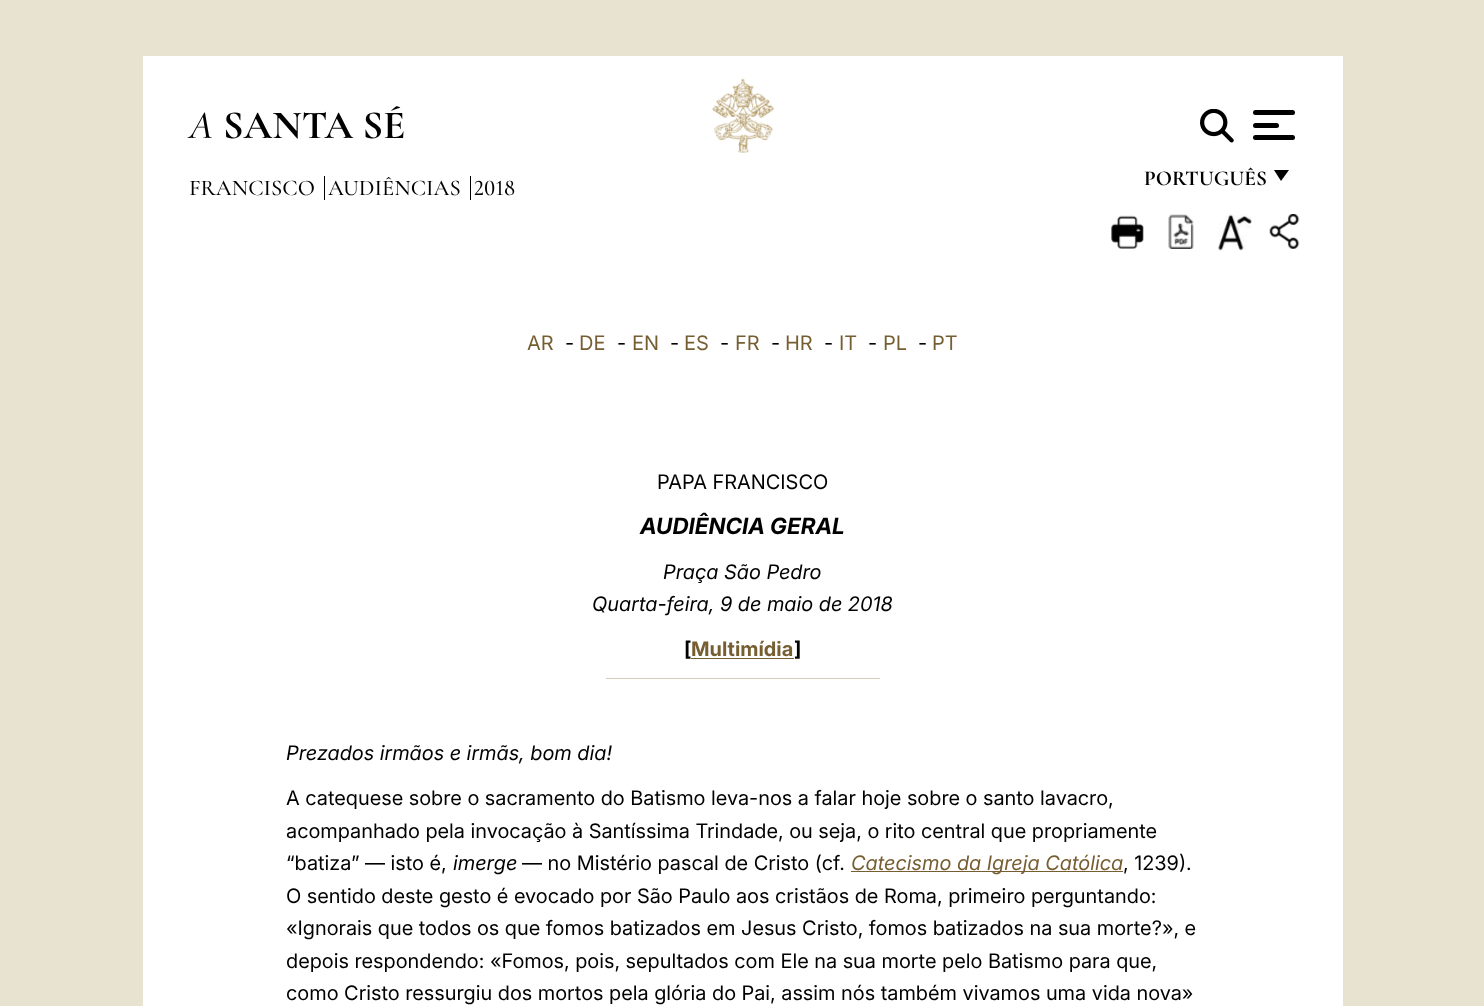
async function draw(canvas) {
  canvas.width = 1484
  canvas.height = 1006
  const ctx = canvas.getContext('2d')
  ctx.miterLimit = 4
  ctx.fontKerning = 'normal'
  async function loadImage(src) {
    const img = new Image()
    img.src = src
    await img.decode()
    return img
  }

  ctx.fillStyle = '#e8e2d1'
  ctx.fillRect(0, 0, 1484, 1006)
  ctx.fillStyle = '#fff'
  ctx.fillRect(143, 56, 1200, 950)
  ctx.font = 'italic 500 40px Cormorant Garamond'
  ctx.fillStyle = '#000'
  ctx.fillText('A', 189, 138)
  ctx.font = 'bold 40px Cormorant Garamond'
  ctx.fillText('SANTA SÉ', 223, 138)
  ctx.drawImage(await loadImage('image0.png'), 712, 78, 63, 75)
  ctx.drawImage(await loadImage('image1.png'), 1200, 109, 34, 34)
  ctx.beginPath()
  ctx.roundRect(1253, 110, 42, 5, 2.5)
  ctx.fill()
  ctx.beginPath()
  ctx.roundRect(1253, 123, 26, 5, 2.5)
  ctx.fill()
  ctx.beginPath()
  ctx.roundRect(1253, 135, 42, 5, 2.5)
  ctx.fill()
  ctx.font = 'bold 21.25px Cormorant Garamond'
  ctx.fillText('PORTUGUÊS', 1144, 185)
  ctx.beginPath()
  ctx.moveTo(1274, 170)
  ctx.lineTo(1289, 170)
  ctx.lineTo(1281, 181)
  ctx.closePath()
  ctx.fill()
  ctx.font = '500 22.5px Cormorant Garamond'
  ctx.fillText('FRANCISCO', 189, 195)
  ctx.fillRect(324, 176, 1, 24)
  ctx.fillText('AUDIÊNCIAS', 328, 195)
  ctx.fillRect(470, 176, 1, 24)
  ctx.font = '500 22.5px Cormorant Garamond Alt'
  ctx.fillText('2018', 474, 195)
  ctx.drawImage(await loadImage('image2.png'), 1111, 215, 33, 34)
  ctx.drawImage(await loadImage('image3.png'), 1168, 214, 26, 35)
  ctx.drawImage(await loadImage('image4.png'), 1218, 214, 34, 37)
  ctx.drawImage(await loadImage('image5.png'), 1269, 214, 31, 35)
  ctx.font = '20px Inter'
  ctx.fillStyle = '#765e32'
  ctx.fillText('AR', 527, 350)
  ctx.font = '20px "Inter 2"'
  ctx.fillStyle = '#000'
  ctx.fillText('-', 565, 350)
  ctx.font = '20px Inter'
  ctx.fillStyle = '#765e32'
  ctx.fillText('DE', 579, 350)
  ctx.font = '20px "Inter 2"'
  ctx.fillStyle = '#000'
  ctx.fillText('-', 617, 350)
  ctx.font = '20px Inter'
  ctx.fillStyle = '#765e32'
  ctx.fillText('EN', 632, 350)
  ctx.font = '20px "Inter 2"'
  ctx.fillStyle = '#000'
  ctx.fillText('-', 670, 350)
  ctx.font = '20px Inter'
  ctx.fillStyle = '#765e32'
  ctx.fillText('ES', 684, 350)
  ctx.font = '20px "Inter 2"'
  ctx.fillStyle = '#000'
  ctx.fillText('-', 720, 350)
  ctx.font = '20px Inter'
  ctx.fillStyle = '#765e32'
  ctx.fillText('FR', 735, 350)
  ctx.font = '20px "Inter 2"'
  ctx.fillStyle = '#000'
  ctx.fillText('-', 771, 350)
  ctx.font = '20px Inter'
  ctx.fillStyle = '#765e32'
  ctx.fillText('HR', 785, 350)
  ctx.font = '20px "Inter 2"'
  ctx.fillStyle = '#000'
  ctx.fillText('-', 824, 350)
  ctx.fillStyle = '#765e32'
  ctx.fillText('IT', 839, 350)
  ctx.fillStyle = '#000'
  ctx.fillText('-', 868, 350)
  ctx.font = '20px Inter'
  ctx.fillStyle = '#765e32'
  ctx.fillText('PL', 883, 350)
  ctx.font = '20px "Inter 2"'
  ctx.fillStyle = '#000'
  ctx.fillText('-', 918, 350)
  ctx.fillStyle = '#765e32'
  ctx.fillText('PT', 932, 350)
  ctx.fillStyle = '#000'
  ctx.fillText('PAPA FRANCISCO', 657, 489)
  ctx.font = 'italic bold 22.5px Inter'
  ctx.fillText('AUDIÊNCIA GERAL', 640, 534)
  ctx.font = 'italic 20px Inter'
  ctx.fillText('Praça São Pedro', 663, 579)
  ctx.fillText('Quarta-feira, 9 de maio de 2018', 592, 611)
  ctx.font = 'bold 20px Inter'
  ctx.fillText('[', 684, 656)
  ctx.fillStyle = '#765e32'
  ctx.fillRect(691, 658, 103, 1)
  ctx.fillText('Multimídia', 691, 656)
  ctx.fillStyle = '#000'
  ctx.fillText(']', 794, 656)
  ctx.fillStyle = '#d9ccbf'
  ctx.fillRect(606, 678, 274, 1)
  ctx.font = 'italic 20px Inter'
  ctx.fillStyle = '#000'
  ctx.fillText('Prezados irmãos e irmãs, bom dia!', 286, 760)
  ctx.font = '20px "Inter 2"'
  ctx.fillText('A catequese sobre o sacramento do Batismo leva-nos a falar hoje sobre o santo lavacro,', 286, 805)
  ctx.fillText('acompanhado pela invocação à Santíssima Trindade, ou seja, o rito central que propriamente', 286, 838)
  ctx.fillText('“batiza” — isto é,', 286, 870)
  ctx.font = 'italic 20px Inter'
  ctx.fillText('imerge', 453, 870)
  ctx.font = '20px "Inter 2"'
  ctx.fillText('— no Mistério pascal de Cristo (cf.', 522, 870)
  ctx.fillStyle = '#765e32'
  ctx.fillRect(851, 871, 272, 1)
  ctx.font = 'italic 20px Inter'
  ctx.fillText('Catecismo da Igreja Católica', 851, 870)
  ctx.font = '20px "Inter 2"'
  ctx.fillStyle = '#000'
  ctx.fillText(', 1239).', 1123, 870)
  ctx.fillText('O sentido deste gesto é evocado por São Paulo aos cristãos de Roma, primeiro perguntando:', 286, 903)
  ctx.fillText('«Ignorais que todos os que fomos batizados em Jesus Cristo, fomos batizados na sua morte?», e', 286, 935)
  ctx.fillText('depois respondendo: «Fomos, pois, sepultados com Ele na sua morte pelo Batismo para que,', 286, 968)
  ctx.fillText('como Cristo ressurgiu dos mortos pela glória do Pai, assim nós também vivamos uma vida nova»', 286, 1000)
}

draw(document.querySelector('canvas'))
